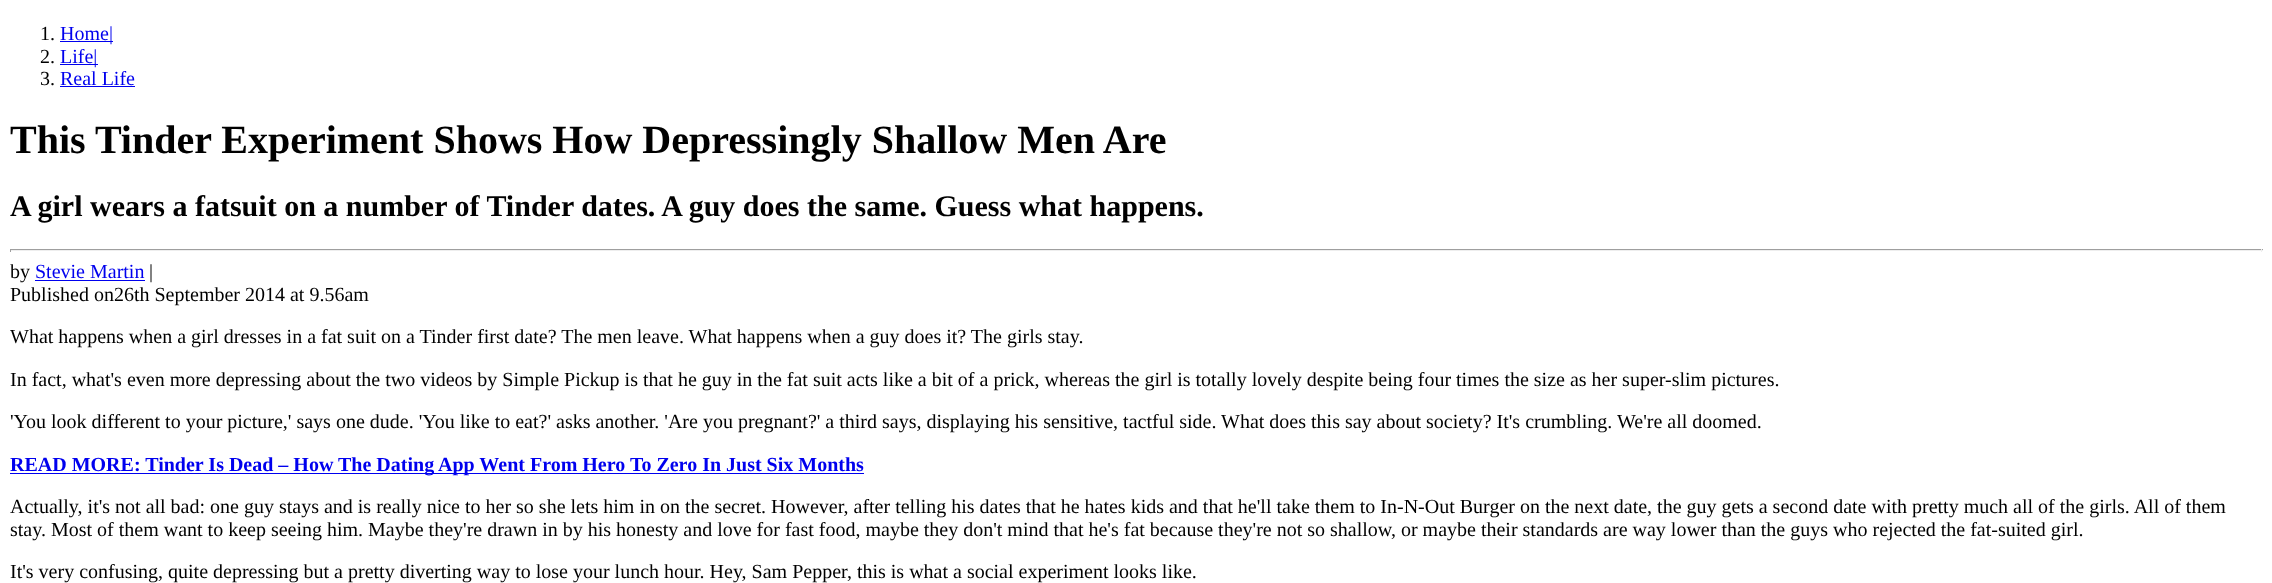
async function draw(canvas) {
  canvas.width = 2272
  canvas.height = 583
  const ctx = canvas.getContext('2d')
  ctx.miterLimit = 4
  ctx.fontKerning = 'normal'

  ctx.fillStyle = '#fff'
  ctx.fillRect(0, 0, 2272, 583)
  ctx.font = '20px Liberation Serif'
  ctx.fillStyle = '#000'
  ctx.fillText('1.', 40, 40)
  ctx.fillStyle = '#00e'
  ctx.fillRect(60, 41, 53, 1)
  ctx.fillText('Home|', 60, 40)
  ctx.fillStyle = '#000'
  ctx.fillText('2.', 40, 63)
  ctx.fillStyle = '#00e'
  ctx.fillRect(60, 64, 38, 1)
  ctx.fillText('Life|', 60, 63)
  ctx.fillStyle = '#000'
  ctx.fillText('3.', 40, 85)
  ctx.fillStyle = '#00e'
  ctx.fillText('Real Life', 60, 85)
  ctx.fillRect(60, 86, 75, 1)
  ctx.font = 'bold 40px Liberation Serif'
  ctx.fillStyle = '#000'
  ctx.fillText('This Tinder Experiment Shows How Depressingly Shallow Men Are', 10, 153)
  ctx.font = 'bold 30px Liberation Serif'
  ctx.fillText('A girl wears a fatsuit on a number of Tinder dates. A guy does the same. Guess what happens.', 10, 216)
  ctx.fillStyle = '#9f9f9f'
  ctx.fillRect(10, 249, 2253, 1)
  ctx.fillStyle = '#eee'
  ctx.fillRect(2261, 249, 1, 3)
  ctx.fillRect(10, 250, 2253, 1)
  ctx.fillStyle = '#9f9f9f'
  ctx.fillRect(10, 249, 1, 3)
  ctx.font = '20px Liberation Serif'
  ctx.fillStyle = '#000'
  ctx.fillText('by', 10, 278)
  ctx.fillStyle = '#00e'
  ctx.fillText('Stevie Martin', 35, 278)
  ctx.fillRect(35, 280, 110, 1)
  ctx.fillStyle = '#000'
  ctx.fillText('|', 149, 278)
  ctx.fillText('Published on26th September 2014 at 9.56am', 10, 301)
  ctx.fillText('What happens when a girl dresses in a fat suit on a Tinder first date? The men leave. What happens when a guy does it? The girls stay.', 10, 343)
  ctx.fillText('In fact, what\'s even more depressing about the two videos by Simple Pickup is that he guy in the fat suit acts like a bit of a prick, whereas the girl is totally lovely despite being four times the size as her super-slim pictures.', 10, 386)
  ctx.fillText('\'You look different to your picture,\' says one dude. \'You like to eat?\' asks another. \'Are you pregnant?\' a third says, displaying his sensitive, tactful side. What does this say about society? It\'s crumbling. We\'re all doomed.', 10, 428)
  ctx.fillStyle = '#00e'
  ctx.fillRect(10, 473, 854, 1)
  ctx.font = 'bold 20px Liberation Serif'
  ctx.fillText('READ MORE: Tinder Is Dead – How The Dating App Went From Hero To Zero In Just Six Months', 10, 471)
  ctx.font = '20px Liberation Serif'
  ctx.fillStyle = '#000'
  ctx.fillText('Actually, it\'s not all bad: one guy stays and is really nice to her so she lets him in on the secret. However, after telling his dates that he hates kids and that he\'ll take them to In-N-Out Burger on the next date, the guy gets a second date with pretty much all of the girls. All of them', 10, 513)
  ctx.fillText('stay. Most of them want to keep seeing him. Maybe they\'re drawn in by his honesty and love for fast food, maybe they don\'t mind that he\'s fat because they\'re not so shallow, or maybe their standards are way lower than the guys who rejected the fat-suited girl.', 10, 536)
  ctx.fillText('It\'s very confusing, quite depressing but a pretty diverting way to lose your lunch hour. Hey, Sam Pepper, this is what a social experiment looks like.', 10, 578)
}

draw(document.querySelector('canvas'))
